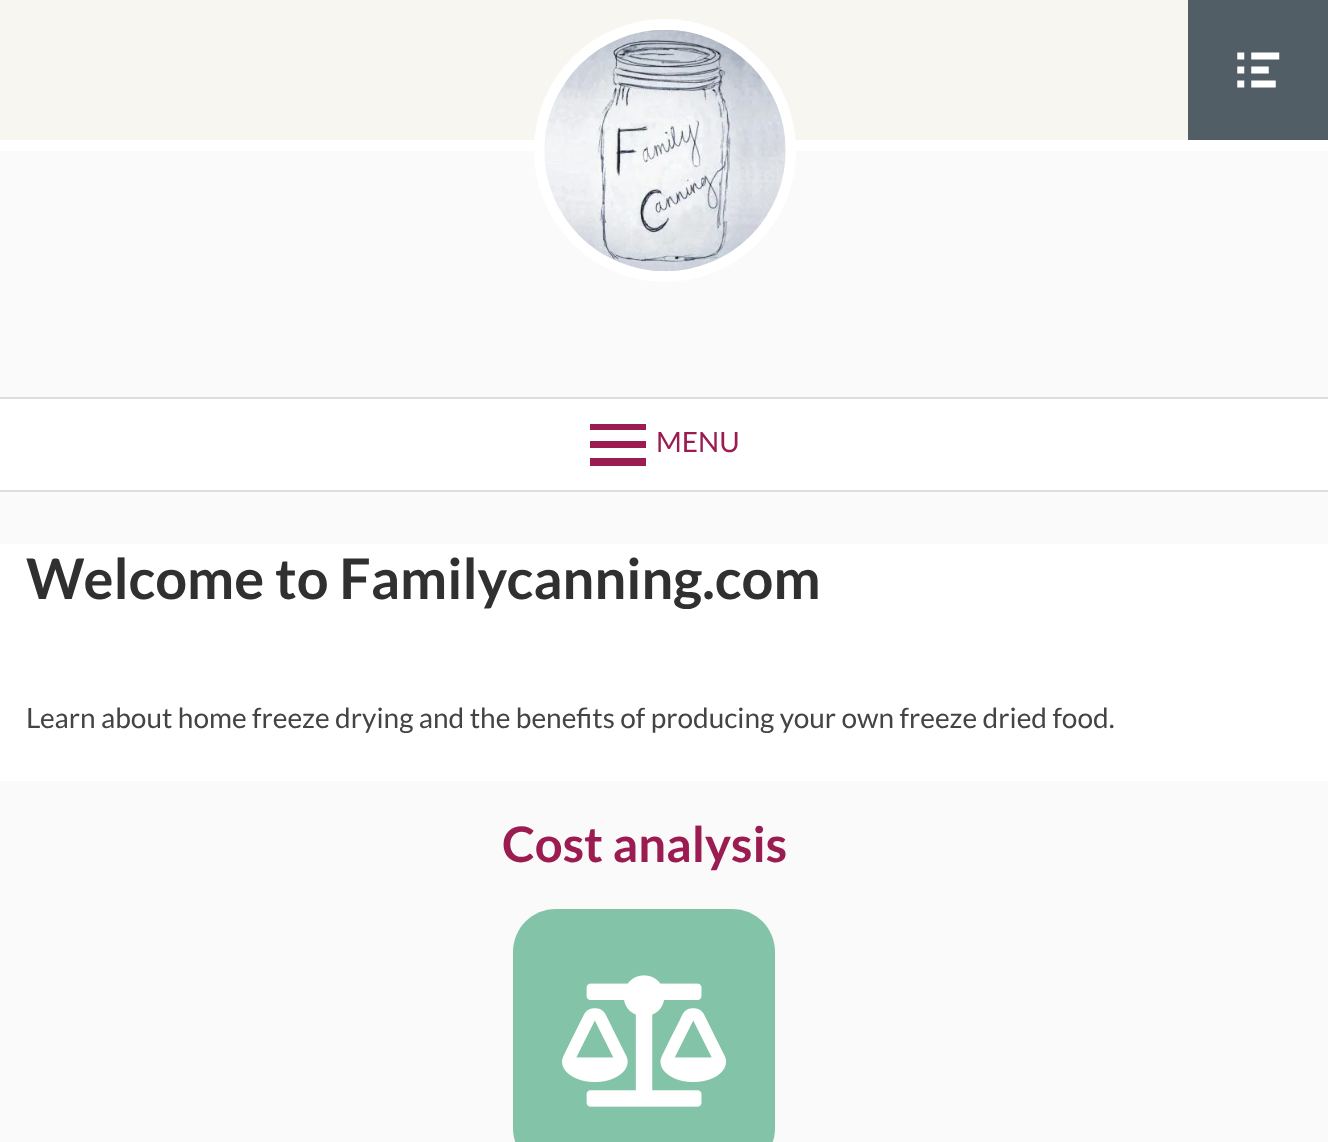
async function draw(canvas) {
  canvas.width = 1328
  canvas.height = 1142
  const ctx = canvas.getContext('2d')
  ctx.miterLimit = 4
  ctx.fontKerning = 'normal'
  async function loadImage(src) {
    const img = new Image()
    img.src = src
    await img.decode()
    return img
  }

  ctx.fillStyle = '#fafafa'
  ctx.fillRect(0, 0, 1328, 1142)
  ctx.fillStyle = '#f7f6f1'
  ctx.fillRect(0, 0, 1188, 140)
  ctx.fillStyle = '#fff'
  ctx.fillRect(0, 140, 1328, 11)
  ctx.fillStyle = '#525e66'
  ctx.fillRect(1188, 0, 140, 140)
  ctx.drawImage(await loadImage('image0.png'), 1237, 52, 43, 36)
  ctx.fillStyle = '#ddd'
  ctx.fillRect(0, 397, 1328, 2)
  ctx.beginPath()
  ctx.roundRect(539.5, 24.5, 251, 252, 125.5)
  ctx.strokeStyle = '#fff'
  ctx.lineWidth = 11
  ctx.stroke()
  ctx.drawImage(await loadImage('image1.png'), 544, 30, 242, 241)
  ctx.fillStyle = '#fff'
  ctx.fillRect(0, 399, 1328, 91)
  ctx.fillStyle = '#ddd'
  ctx.fillRect(0, 490, 1328, 2)
  ctx.fillStyle = '#9b1c51'
  ctx.beginPath()
  ctx.moveTo(590, 466)
  ctx.lineTo(590, 458)
  ctx.lineTo(646, 458)
  ctx.lineTo(646, 466)
  ctx.closePath()
  ctx.moveTo(590, 424)
  ctx.lineTo(646, 424)
  ctx.lineTo(646, 430)
  ctx.lineTo(590, 430)
  ctx.closePath()
  ctx.moveTo(590, 448)
  ctx.lineTo(590, 441)
  ctx.lineTo(646, 441)
  ctx.lineTo(646, 448)
  ctx.closePath()
  ctx.fill()
  ctx.font = '28px Lato'
  ctx.fillText('MENU', 656, 452)
  ctx.fillStyle = '#fff'
  ctx.fillRect(0, 544, 1328, 237)
  ctx.font = 'bold 56px Lato'
  ctx.fillStyle = '#303030'
  ctx.fillText('Welcome to Familycanning.com', 26, 599)
  ctx.font = '28px Lato'
  ctx.fillStyle = '#444'
  ctx.fillText('Learn about home freeze drying and the benefits of producing your own freeze dried food.', 26, 728)
  ctx.font = 'bold 49px Lato'
  ctx.fillStyle = '#9b1c51'
  ctx.fillText('Cost analysis', 502, 862)
  ctx.fillStyle = '#83c4a8'
  ctx.beginPath()
  ctx.moveTo(775, 1128)
  ctx.bezierCurveTo(775, 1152, 756, 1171, 732, 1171)
  ctx.lineTo(556, 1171)
  ctx.bezierCurveTo(532, 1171, 513, 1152, 513, 1128)
  ctx.lineTo(513, 952)
  ctx.bezierCurveTo(513, 928, 532, 909, 556, 909)
  ctx.lineTo(732, 909)
  ctx.bezierCurveTo(756, 909, 775, 928, 775, 952)
  ctx.closePath()
  ctx.fill()
  ctx.drawImage(await loadImage('image2.png'), 562, 975, 165, 132)
}

draw(document.querySelector('canvas'))
